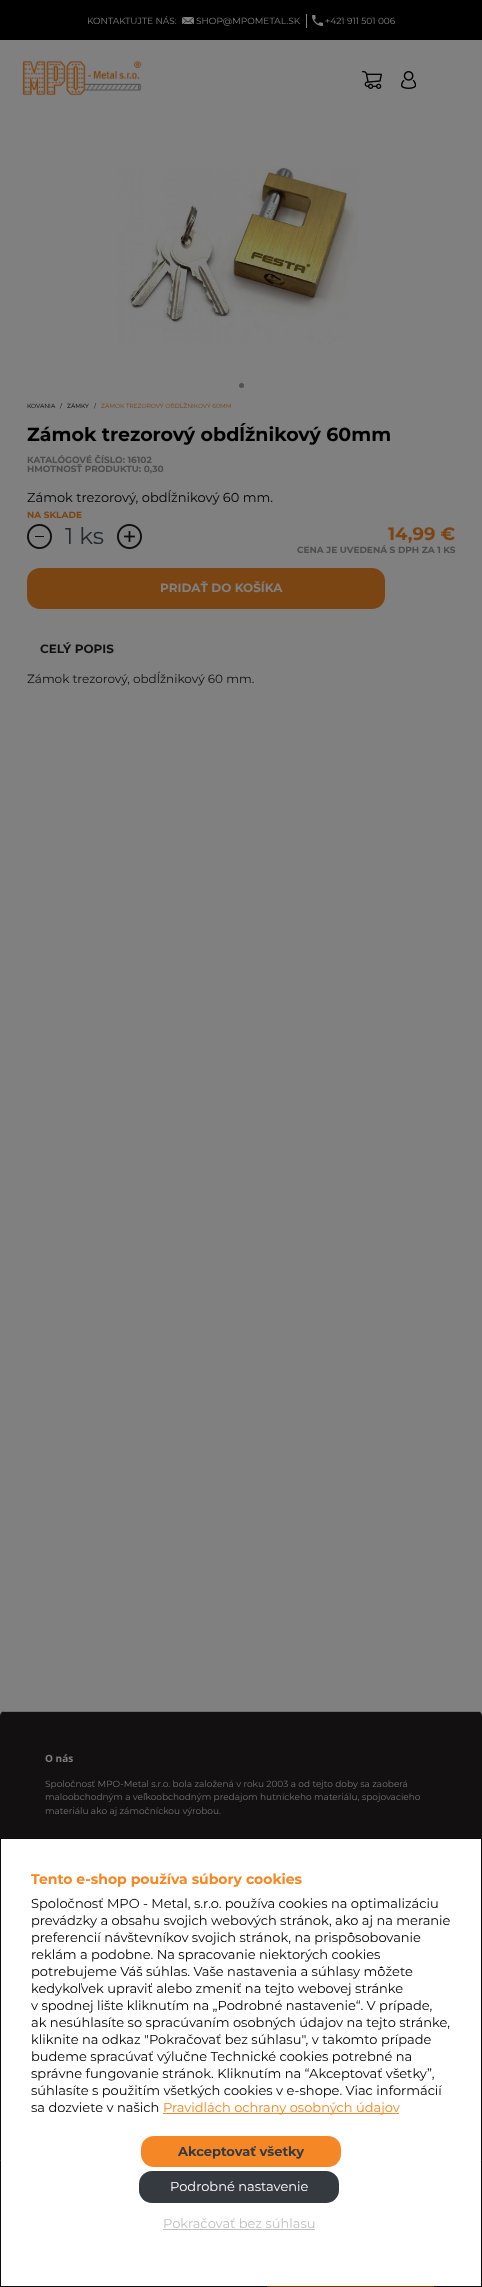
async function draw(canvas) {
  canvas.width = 482
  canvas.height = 2287
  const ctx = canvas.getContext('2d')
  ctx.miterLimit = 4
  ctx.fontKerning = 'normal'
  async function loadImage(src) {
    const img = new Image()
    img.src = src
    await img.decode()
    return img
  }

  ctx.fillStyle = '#808080'
  ctx.fillRect(0, 0, 482, 2287)
  ctx.fillStyle = '#000'
  ctx.fillRect(0, 0, 482, 40)
  ctx.font = '9px Montserrat'
  ctx.fillStyle = '#808080'
  ctx.fillText('KONTAKTUJTE NÁS:', 87, 24)
  ctx.drawImage(await loadImage('image0.png'), 182, 17, 12, 7)
  ctx.fillText('SHOP@MPOMETAL.SK', 196, 24)
  ctx.fillRect(306, 14, 1, 14)
  ctx.drawImage(await loadImage('image1.png'), 312, 15, 11, 11)
  ctx.fillText('+421 911 501 006', 325, 24)
  ctx.drawImage(await loadImage('image2.png'), 22, 60, 120, 36)
  ctx.drawImage(await loadImage('image3.png'), 362, 71, 20, 18)
  ctx.drawImage(await loadImage('image4.png'), 401, 71, 15, 18)
  ctx.drawImage(await loadImage('image5.png'), 116, 167, 242, 178)
  ctx.fillStyle = '#515151'
  ctx.beginPath()
  ctx.arc(241.5, 385.5, 2.5, 0, 2 * Math.PI)
  ctx.fill()
  ctx.font = '6px Montserrat'
  ctx.fillStyle = '#000'
  ctx.fillText('KOVANIA', 27, 408)
  ctx.fillText('/', 60, 408)
  ctx.fillText('ZÁMKY', 67, 408)
  ctx.fillText('/', 94, 408)
  ctx.fillStyle = '#7b4413'
  ctx.fillText('ZÁMOK TREZOROVÝ OBDĹŽNIKOVÝ 60MM', 101, 408)
  ctx.font = 'bold 19px Montserrat'
  ctx.fillStyle = '#000'
  ctx.fillText('Zámok trezorový obdĺžnikový 60mm', 27, 441)
  ctx.font = 'bold 9px Montserrat'
  ctx.fillStyle = '#4d4d4d'
  ctx.fillText('KATALÓGOVÉ ČÍSLO: 16102', 27, 463)
  ctx.fillText('HMOTNOSŤ PRODUKTU: 0,30', 27, 472)
  ctx.font = '13px Montserrat'
  ctx.fillStyle = '#000'
  ctx.fillText('Zámok trezorový, obdĺžnikový 60 mm.', 27, 502)
  ctx.font = 'bold 9px Montserrat'
  ctx.fillStyle = '#7b4413'
  ctx.fillText('NA SKLADE', 27, 518)
  ctx.drawImage(await loadImage('image6.png'), 27, 524, 25, 25)
  ctx.font = '23px Montserrat'
  ctx.fillStyle = '#25282c'
  ctx.fillText('1 ks', 65, 544)
  ctx.drawImage(await loadImage('image7.png'), 117, 524, 25, 25)
  ctx.font = 'bold 18px Montserrat'
  ctx.fillStyle = '#7b4413'
  ctx.fillText('14,99 €', 388, 540)
  ctx.font = 'bold 9px Montserrat'
  ctx.fillStyle = '#4d4d4d'
  ctx.fillText('CENA JE UVEDENÁ S DPH ZA 1 KS', 297, 553)
  ctx.fillStyle = '#7b4413'
  ctx.beginPath()
  ctx.roundRect(27, 568, 358, 41, 13)
  ctx.fill()
  ctx.font = 'bold 12px Montserrat'
  ctx.fillStyle = '#808080'
  ctx.fillText('PRIDAŤ DO KOŠÍKA', 160, 592)
  ctx.fillStyle = '#121010'
  ctx.fillText('CELÝ POPIS', 40, 653)
  ctx.font = '12px Montserrat'
  ctx.fillText('Zámok trezorový, obdĺžnikový 60 mm.', 27, 683)
  ctx.beginPath()
  ctx.roundRect(0, 1711, 482, 576, [5, 5, 0, 0])
  ctx.fill()
  ctx.fillStyle = '#6f6f6f'
  ctx.fillRect(3, 1711, 477, 1)
  ctx.font = 'bold 10px Open Sans'
  ctx.fillStyle = '#808080'
  ctx.fillText('O nás', 45, 1762)
  ctx.font = '9px Montserrat'
  ctx.fillStyle = '#717171'
  ctx.fillText('Spoločnosť MPO-Metal s.r.o. bola založená v roku 2003 a od tejto doby sa zaoberá', 45, 1787)
  ctx.fillText('maloobchodným a veľkoobchodným predajom hutníckeho materiálu, spojovacieho', 45, 1800)
  ctx.fillText('materiálu ako aj zámočníckou výrobou.', 45, 1814)
  ctx.fillStyle = '#333'
  ctx.fillRect(0, 2160, 482, 1)
  ctx.fillStyle = '#fff'
  ctx.fillRect(1, 1839, 480, 447)
  ctx.fillStyle = '#7b4413'
  ctx.fillRect(267, 2286, 167, 1)
  ctx.strokeStyle = '#00000033'
  ctx.strokeRect(0.5, 1838.5, 481, 448)
  ctx.font = 'bold 14px Montserrat'
  ctx.fillStyle = '#f68726'
  ctx.fillText('Tento e-shop používa súbory cookies', 31, 1884)
  ctx.font = '13px Montserrat'
  ctx.fillStyle = '#000'
  ctx.fillText('Spoločnosť MPO - Metal, s.r.o. používa cookies na optimalizáciu', 31, 1908)
  ctx.fillText('prevádzky a obsahu svojich webových stránok, ako aj na meranie', 31, 1925)
  ctx.fillText('preferencií návštevníkov svojich stránok, na prispôsobovanie', 31, 1942)
  ctx.fillText('reklám a podobne. Na spracovanie niektorých cookies', 31, 1959)
  ctx.fillText('potrebujeme Váš súhlas. Vaše nastavenia a súhlasy môžete', 31, 1976)
  ctx.fillText('kedykoľvek upraviť alebo zmeniť na tejto webovej stránke', 31, 1993)
  ctx.fillText('v spodnej lište kliknutím na „Podrobné nastavenie“. V prípade,', 31, 2010)
  ctx.fillText('ak nesúhlasíte so spracúvaním osobných údajov na tejto stránke,', 31, 2027)
  ctx.fillText('kliknite na odkaz "Pokračovať bez súhlasu", v takomto prípade', 31, 2044)
  ctx.fillText('budeme spracúvať výlučne Technické cookies potrebné na', 31, 2061)
  ctx.fillText('správne fungovanie stránok. Kliknutím na “Akceptovať všetky”,', 31, 2078)
  ctx.fillText('súhlasíte s použitím všetkých cookies v e-shope. Viac informácií', 31, 2095)
  ctx.fillText('sa dozviete v našich', 31, 2112)
  ctx.fillStyle = '#f68726'
  ctx.fillRect(163, 2113, 236, 1)
  ctx.fillText('Pravidlách ochrany osobných údajov', 163, 2112)
  ctx.beginPath()
  ctx.roundRect(141, 2136, 200, 31, 13)
  ctx.fill()
  ctx.font = 'bold 13px Montserrat'
  ctx.fillStyle = '#343a40'
  ctx.fillText('Akceptovať všetky', 178, 2156)
  ctx.beginPath()
  ctx.roundRect(139, 2171, 200, 32, 13)
  ctx.fill()
  ctx.font = '13px Montserrat'
  ctx.fillStyle = '#fff'
  ctx.fillText('Podrobné nastavenie', 170, 2191)
  ctx.fillStyle = '#c0c0c0'
  ctx.fillText('Pokračovať bez súhlasu', 163, 2228)
  ctx.fillRect(163, 2229, 152, 1)
}

draw(document.querySelector('canvas'))
